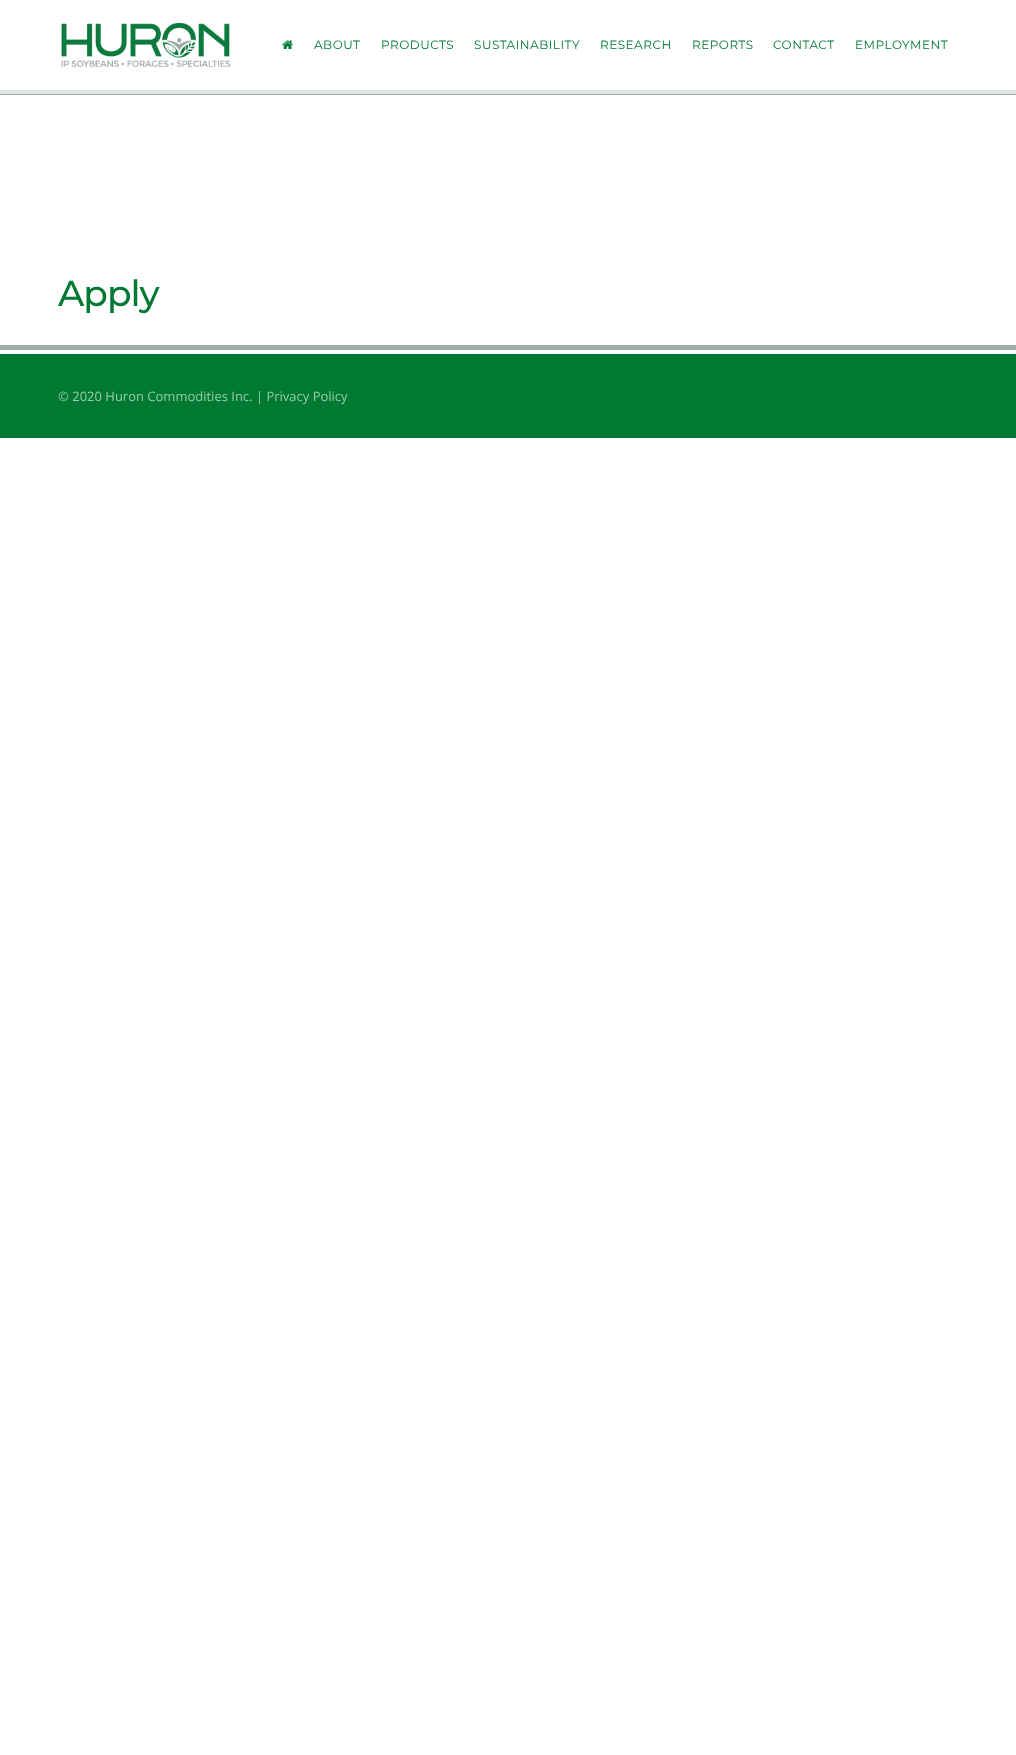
async function draw(canvas) {
  canvas.width = 1016
  canvas.height = 1755
  const ctx = canvas.getContext('2d')
  ctx.miterLimit = 4
  ctx.fontKerning = 'normal'
  async function loadImage(src) {
    const img = new Image()
    img.src = src
    await img.decode()
    return img
  }

  ctx.fillStyle = '#fff'
  ctx.fillRect(0, 0, 1016, 1755)
  ctx.fillStyle = '#a2acab'
  ctx.fillRect(0, 94, 1016, 1)
  ctx.fillStyle = '#e3e6e6'
  ctx.fillRect(0, 90, 1016, 4)
  ctx.drawImage(await loadImage('image0.png'), 61, 23, 170, 44)
  ctx.drawImage(await loadImage('image1.png'), 282, 40, 11, 9)
  ctx.letterSpacing = '0.5px'
  ctx.font = '12px Montserrat'
  ctx.fillStyle = '#007a33'
  ctx.fillText('ABOUT', 314, 49)
  ctx.fillText('PRODUCTS', 381, 49)
  ctx.fillText('SUSTAINABILITY', 474, 49)
  ctx.fillText('RESEARCH', 600, 49)
  ctx.fillText('REPORTS', 692, 49)
  ctx.fillText('CONTACT', 773, 49)
  ctx.fillText('EMPLOYMENT', 855, 49)
  ctx.letterSpacing = '-1px'
  ctx.font = '500 36px Montserrat'
  ctx.fillText('Apply', 58, 306)
  ctx.fillStyle = '#a2acab'
  ctx.fillRect(0, 345, 1016, 5)
  ctx.fillStyle = '#007a33'
  ctx.fillRect(0, 354, 1016, 84)
  ctx.letterSpacing = '0px'
  ctx.font = '13px Open Sans'
  ctx.fillStyle = '#99caad'
  ctx.fillText('© 2020 Huron Commodities Inc. | Privacy Policy', 58, 401)
}

draw(document.querySelector('canvas'))
